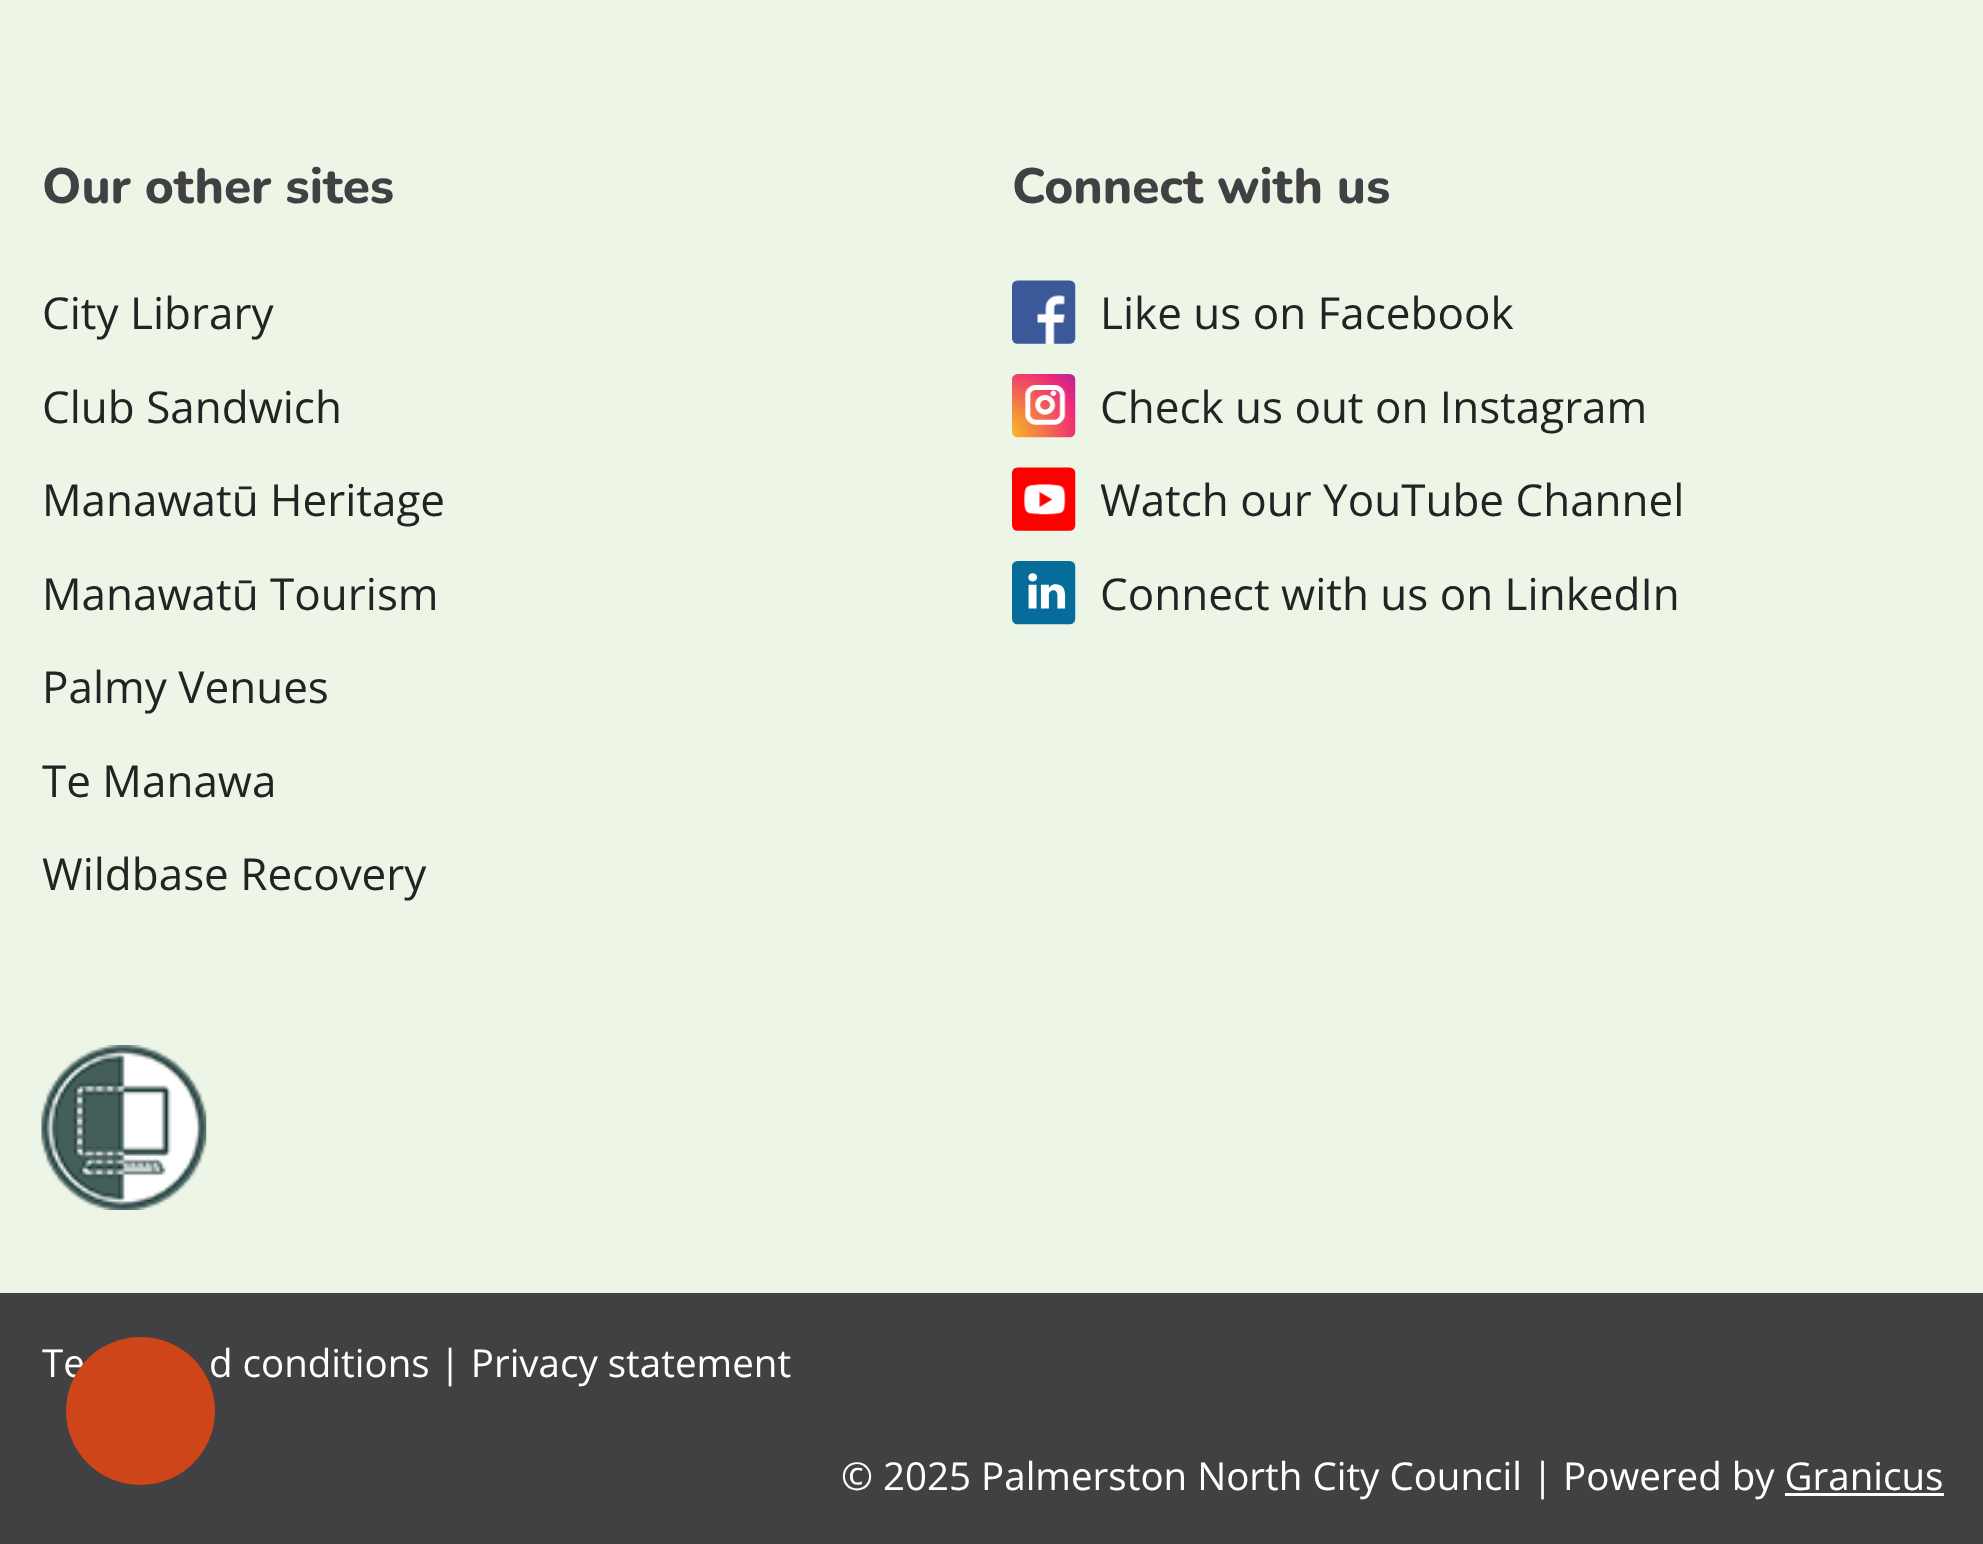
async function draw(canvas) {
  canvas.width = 1983
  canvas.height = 1544
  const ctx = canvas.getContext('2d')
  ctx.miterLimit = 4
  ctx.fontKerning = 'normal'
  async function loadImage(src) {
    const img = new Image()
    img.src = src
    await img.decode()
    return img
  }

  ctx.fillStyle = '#edf5e7'
  ctx.fillRect(0, 0, 1983, 1544)
  ctx.font = '800 49.5px Nunito'
  ctx.fillStyle = '#414042'
  ctx.fillText('Our other sites', 42, 203)
  ctx.font = '44px Open Sans'
  ctx.fillStyle = '#242324'
  ctx.fillText('City Library', 42, 329)
  ctx.fillText('Club Sandwich', 42, 423)
  ctx.fillText('Manawatū Heritage', 42, 516)
  ctx.fillText('Manawatū Tourism', 42, 610)
  ctx.fillText('Palmy Venues', 42, 703)
  ctx.fillText('Te Manawa', 42, 797)
  ctx.fillText('Wildbase Recovery', 42, 890)
  ctx.font = '800 49.5px Nunito'
  ctx.fillStyle = '#414042'
  ctx.fillText('Connect with us', 1012, 203)
  ctx.drawImage(await loadImage('image0.png'), 1012, 280, 64, 64)
  ctx.font = '44px Open Sans'
  ctx.fillStyle = '#242324'
  ctx.fillText('Like us on Facebook', 1100, 329)
  ctx.drawImage(await loadImage('image1.png'), 1011, 374, 65, 64)
  ctx.fillText('Check us out on Instagram', 1100, 423)
  ctx.drawImage(await loadImage('image2.png'), 1012, 467, 64, 64)
  ctx.fillText('Watch our YouTube Channel', 1100, 516)
  ctx.drawImage(await loadImage('image3.png'), 1011, 561, 65, 64)
  ctx.fillText('Connect with us on LinkedIn', 1100, 610)
  ctx.drawImage(await loadImage('image4.png'), 41, 1045, 166, 165)
  ctx.fillStyle = '#414042'
  ctx.fillRect(0, 1293, 1983, 251)
  ctx.font = '38.5px Open Sans'
  ctx.fillStyle = '#fff'
  ctx.fillText('Te', 42, 1377)
  ctx.fillText('d conditions | Privacy statement', 209, 1377)
  ctx.fillText('© 2025 Palmerston North City Council | Powered by Granicus', 841, 1490)
  ctx.fillRect(1785, 1493, 159, 3)
  ctx.fillStyle = '#cd4518'
  ctx.beginPath()
  ctx.roundRect(66, 1337, 149, 148, 74)
  ctx.fill()
}

draw(document.querySelector('canvas'))
